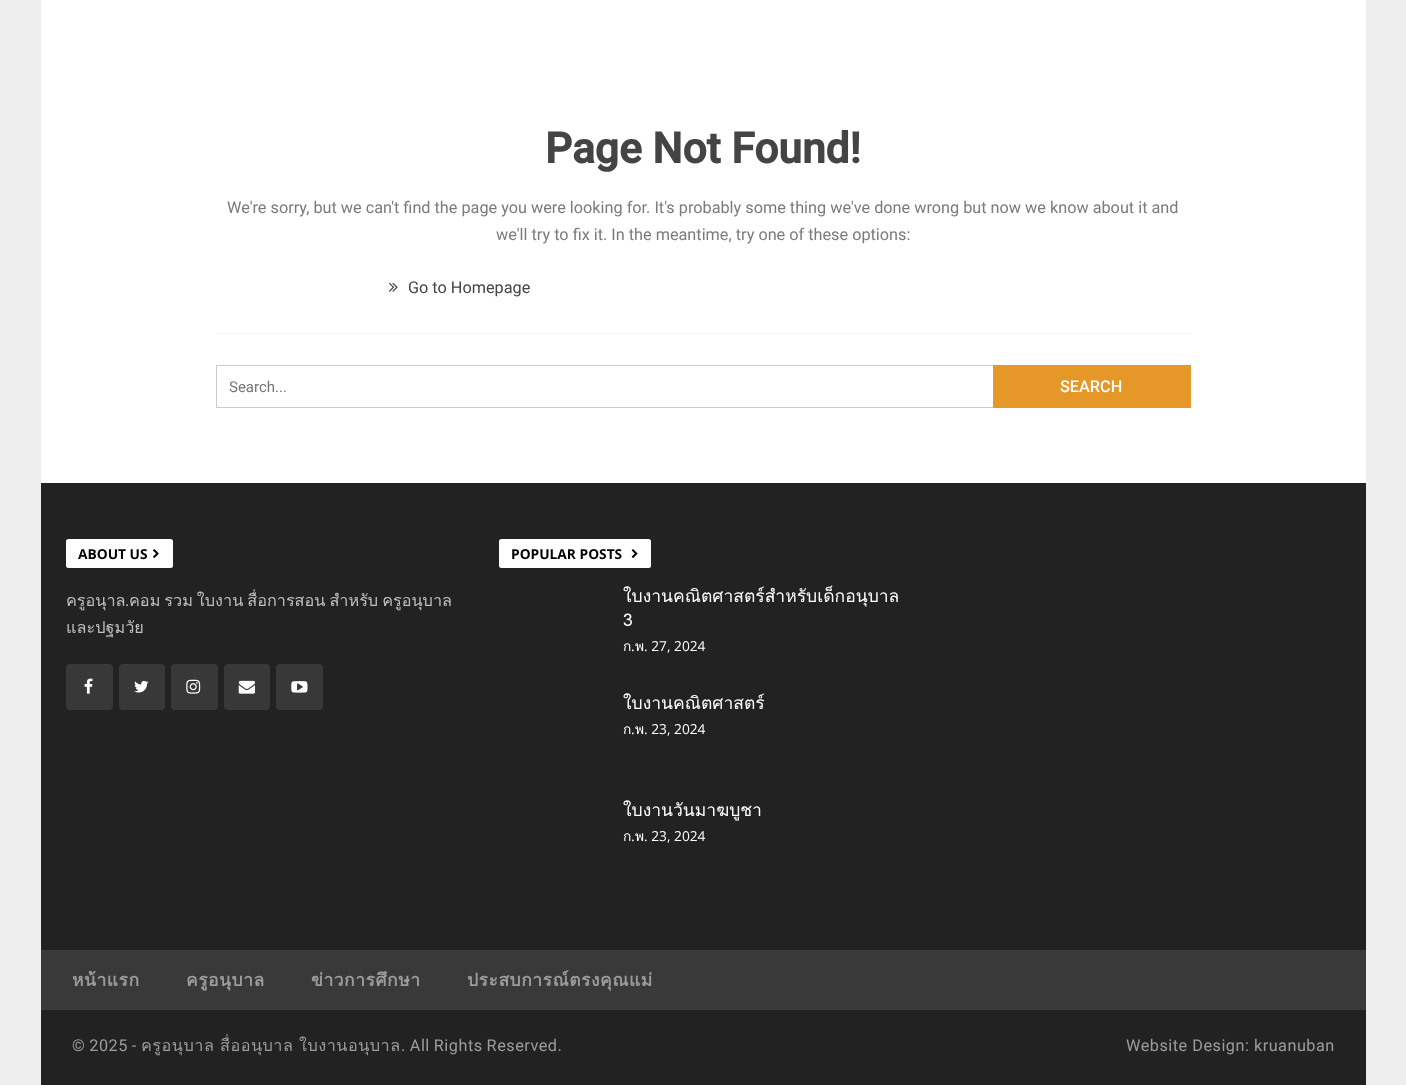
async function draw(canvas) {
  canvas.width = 1406
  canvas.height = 1085
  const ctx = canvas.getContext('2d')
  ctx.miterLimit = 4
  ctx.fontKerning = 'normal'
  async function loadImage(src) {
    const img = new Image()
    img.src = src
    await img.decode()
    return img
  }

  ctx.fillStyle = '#eee'
  ctx.fillRect(0, 0, 1406, 1085)
  ctx.fillStyle = '#fff'
  ctx.fillRect(41, 0, 1325, 483)
  ctx.font = 'bold 42.5px Roboto'
  ctx.fillStyle = '#444'
  ctx.fillText('Page Not Found!', 545, 163)
  ctx.font = '16.25px Roboto'
  ctx.fillStyle = '#7b7b7b'
  ctx.fillText('We\'re sorry, but we can\'t find the page you were looking for. It\'s probably some thing we\'ve done wrong but now we know about it and', 227, 213)
  ctx.fillText('we\'ll try to fix it. In the meantime, try one of these options:', 496, 240)
  ctx.drawImage(await loadImage('image0.png'), 388, 282, 10, 10)
  ctx.fillStyle = '#444'
  ctx.fillText('Go to Homepage', 408, 293)
  ctx.fillStyle = '#f4f4f4'
  ctx.fillRect(216, 333, 975, 1)
  ctx.strokeStyle = '#cbcbcb'
  ctx.strokeRect(216.5, 365.5, 974, 42)
  ctx.font = '15px Roboto'
  ctx.fillStyle = '#757575'
  ctx.fillText('Search...', 229, 392)
  ctx.fillStyle = '#e59727'
  ctx.fillRect(993, 365, 198, 43)
  ctx.font = '500 16.25px Roboto'
  ctx.fillStyle = '#fff'
  ctx.fillText('SEARCH', 1060, 392)
  ctx.fillStyle = '#222'
  ctx.fillRect(41, 483, 1325, 602)
  ctx.fillStyle = '#fff'
  ctx.beginPath()
  ctx.roundRect(66, 539, 107, 29, 2.5)
  ctx.fill()
  ctx.font = 'bold 13.75px Open Sans'
  ctx.fillStyle = '#000'
  ctx.fillText('ABOUT US', 78, 559)
  ctx.drawImage(await loadImage('image1.png'), 153, 549, 6, 9)
  ctx.font = '16.25px Loma'
  ctx.fillStyle = '#bfbfbf'
  ctx.fillText('ครูอนุาล', 66, 606)
  ctx.font = '16.25px Roboto'
  ctx.fillText('.', 125, 606)
  ctx.wordSpacing = '-1.5px'
  ctx.font = '16.25px Loma'
  ctx.fillText('คอม รวม ใบงาน สื่อการสอน สำหรับ ครูอนุบาล', 129, 606)
  ctx.wordSpacing = '0px'
  ctx.fillText('และปฐมวัย', 66, 633)
  ctx.fillStyle = '#383838'
  ctx.beginPath()
  ctx.roundRect(66, 664, 47, 46, 4)
  ctx.fill()
  ctx.drawImage(await loadImage('image2.png'), 84, 678, 9, 16)
  ctx.beginPath()
  ctx.roundRect(119, 664, 46, 46, 4)
  ctx.fill()
  ctx.drawImage(await loadImage('image3.png'), 134, 680, 15, 13)
  ctx.beginPath()
  ctx.roundRect(171, 664, 47, 46, 4)
  ctx.fill()
  ctx.drawImage(await loadImage('image4.png'), 186, 679, 15, 15)
  ctx.beginPath()
  ctx.roundRect(224, 664, 46, 46, 4)
  ctx.fill()
  ctx.drawImage(await loadImage('image5.png'), 238, 680, 17, 14)
  ctx.beginPath()
  ctx.roundRect(276, 664, 47, 46, 4)
  ctx.fill()
  ctx.drawImage(await loadImage('image6.png'), 291, 681, 17, 12)
  ctx.fillStyle = '#fff'
  ctx.beginPath()
  ctx.roundRect(499, 539, 152, 29, 2.5)
  ctx.fill()
  ctx.font = 'bold 13.75px Open Sans'
  ctx.fillStyle = '#000'
  ctx.fillText('POPULAR POSTS', 511, 559)
  ctx.drawImage(await loadImage('image7.png'), 631, 549, 7, 9)
  ctx.font = '17.5px Loma'
  ctx.fillStyle = '#fff'
  ctx.fillText('ใบงานคณิตศาสตร์สำหรับเด็กอนุบาล', 623, 602)
  ctx.fillText('3', 623, 626)
  ctx.font = '13.75px Loma'
  ctx.fillText('ก', 623, 651)
  ctx.font = '13.75px Open Sans'
  ctx.fillText('.', 631, 651)
  ctx.font = '13.75px Loma'
  ctx.fillText('พ', 635, 651)
  ctx.font = '13.75px Open Sans'
  ctx.fillText('. 27, 2024', 644, 651)
  ctx.font = '17.5px Loma'
  ctx.fillText('ใบงานคณิตศาสตร์', 623, 709)
  ctx.font = '13.75px Loma'
  ctx.fillText('ก', 623, 734)
  ctx.font = '13.75px Open Sans'
  ctx.fillText('.', 631, 734)
  ctx.font = '13.75px Loma'
  ctx.fillText('พ', 635, 734)
  ctx.font = '13.75px Open Sans'
  ctx.fillText('. 23, 2024', 644, 734)
  ctx.font = '17.5px Loma'
  ctx.fillText('ใบงานวันมาฆบูชา', 623, 816)
  ctx.font = '13.75px Loma'
  ctx.fillText('ก', 623, 841)
  ctx.font = '13.75px Open Sans'
  ctx.fillText('.', 631, 841)
  ctx.font = '13.75px Loma'
  ctx.fillText('พ', 635, 841)
  ctx.font = '13.75px Open Sans'
  ctx.fillText('. 23, 2024', 644, 841)
  ctx.fillStyle = '#393939'
  ctx.fillRect(41, 950, 1325, 60)
  ctx.letterSpacing = '0.5px'
  ctx.font = 'bold 17.5px Loma'
  ctx.fillStyle = '#9c9c9c'
  ctx.fillText('หน้าแรก', 72, 986)
  ctx.fillText('ครูอนุบาล', 186, 986)
  ctx.fillText('ข่าวการศึกษา', 311, 986)
  ctx.fillText('ประสบการณ์ตรงคุณแม่', 467, 986)
  ctx.wordSpacing = '-0.5px'
  ctx.font = '16.25px Roboto'
  ctx.fillText('© 2025 -', 72, 1051)
  ctx.wordSpacing = '0px'
  ctx.font = '16.25px Loma'
  ctx.fillText('ครูอนุบาล', 141, 1051)
  ctx.fillText('สื่ออนุบาล', 220, 1051)
  ctx.fillText('ใบงานอนุบาล', 299, 1051)
  ctx.wordSpacing = '-0.5px'
  ctx.font = '16.25px Roboto'
  ctx.fillText('. All Rights Reserved.', 401, 1051)
  ctx.wordSpacing = '0px'
  ctx.fillText('Website Design: kruanuban', 1126, 1051)
}

draw(document.querySelector('canvas'))
